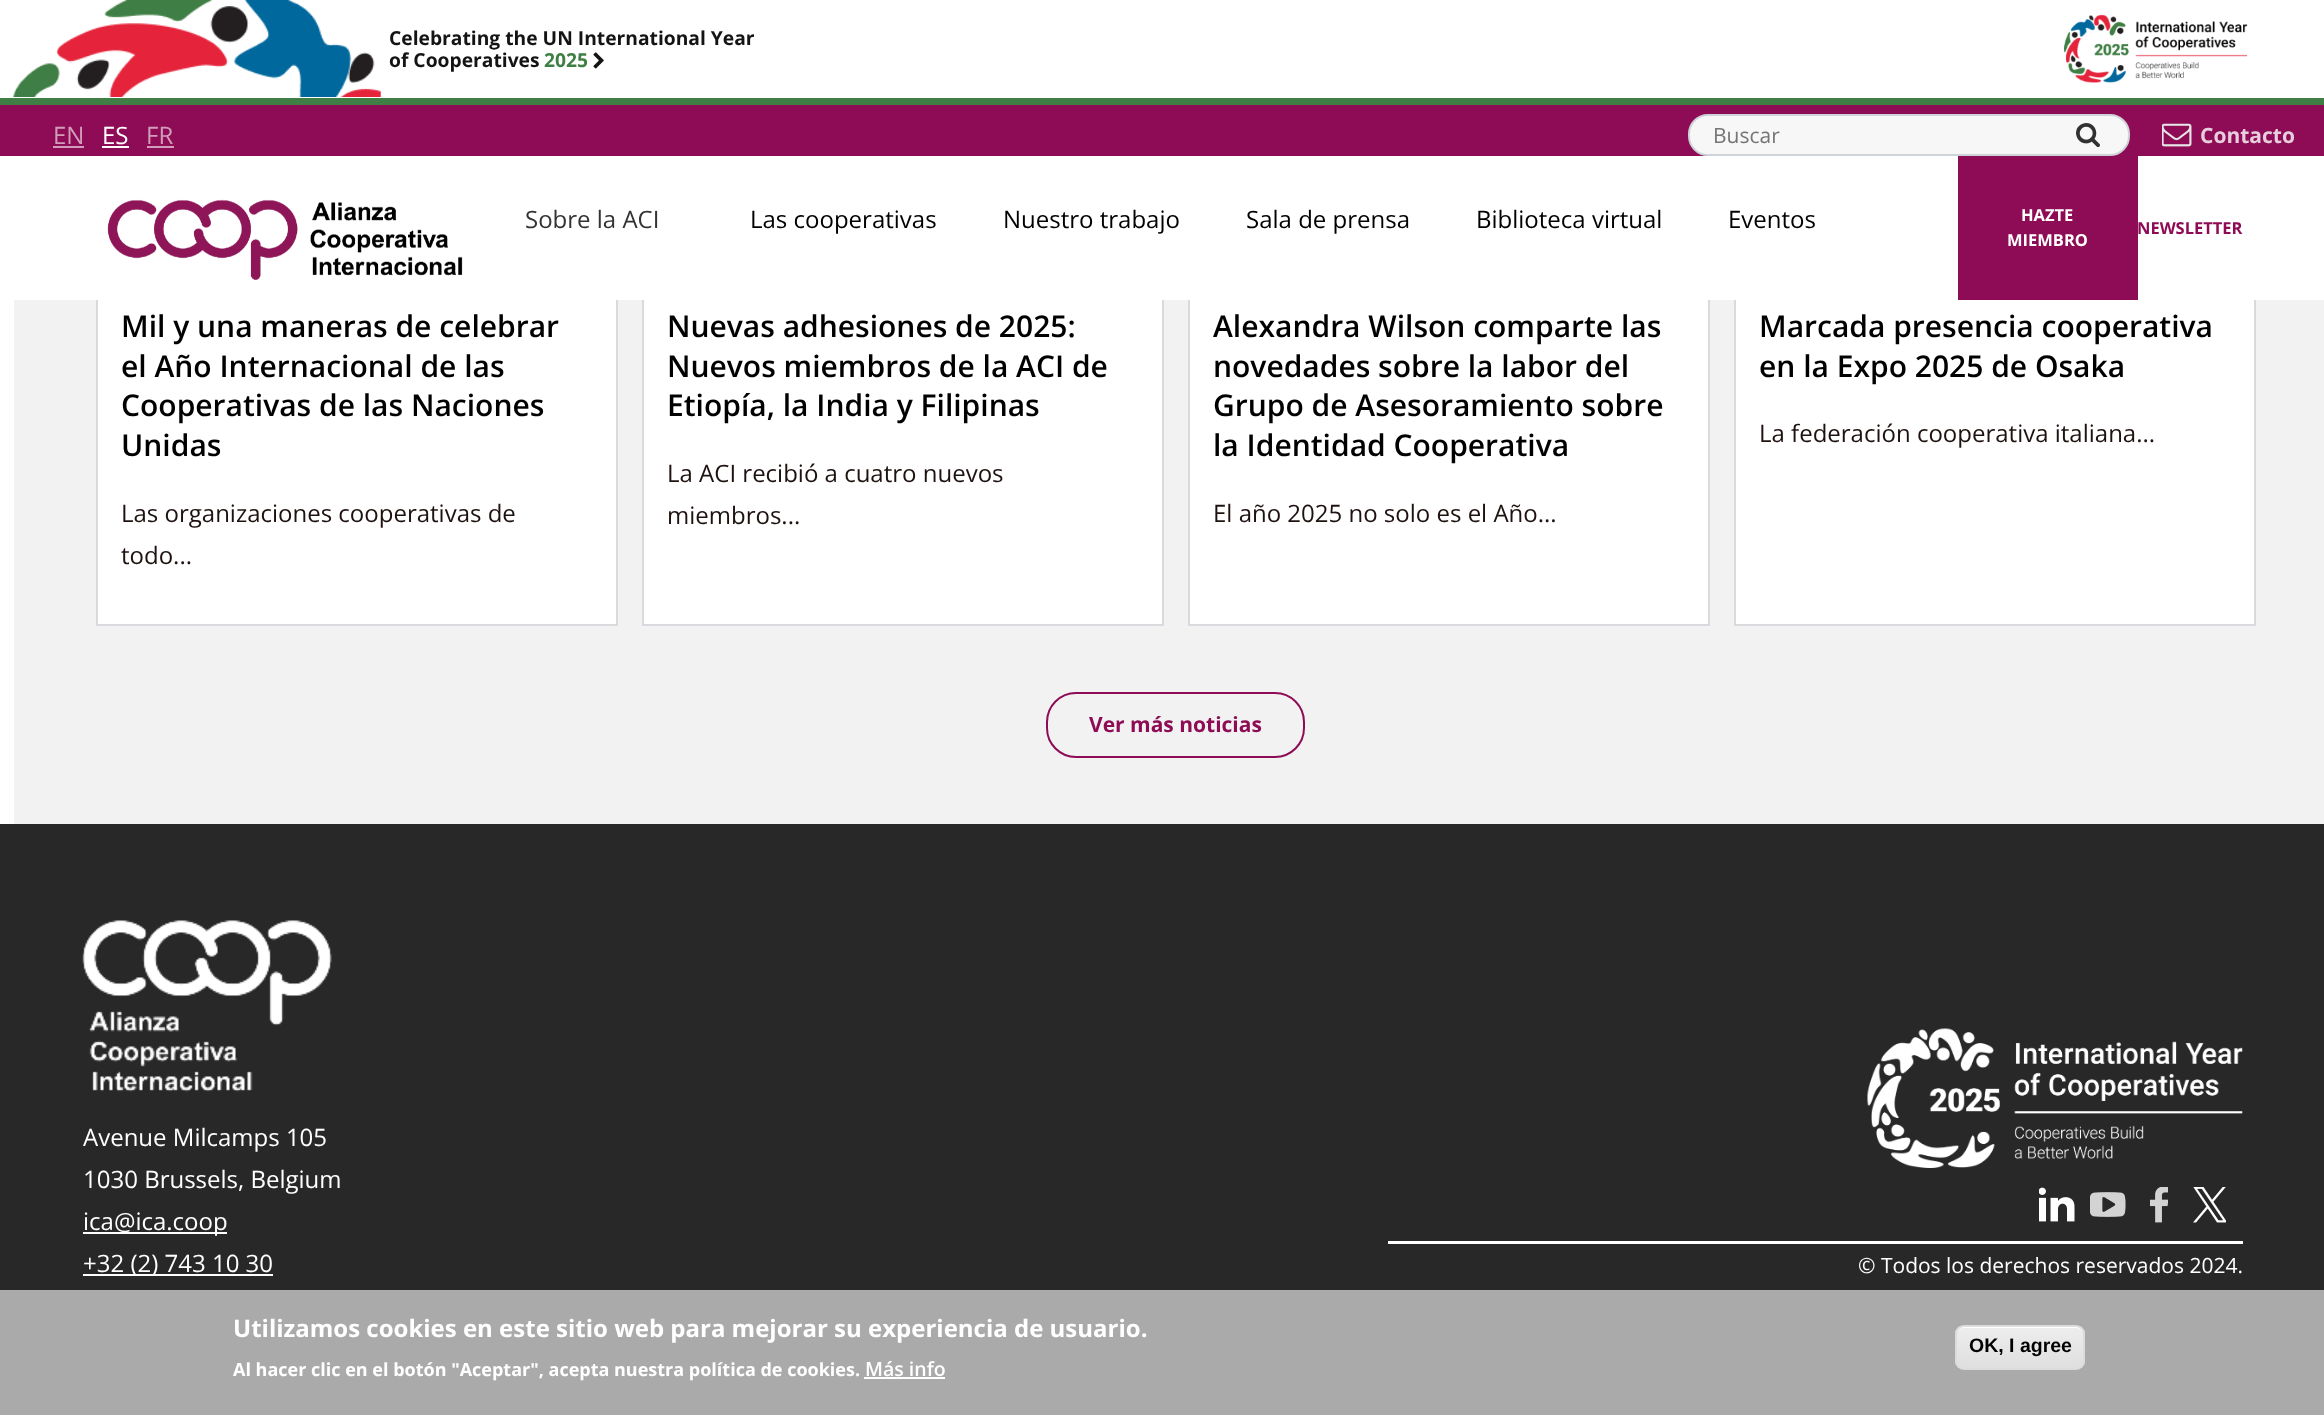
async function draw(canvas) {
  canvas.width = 2324
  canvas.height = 1415
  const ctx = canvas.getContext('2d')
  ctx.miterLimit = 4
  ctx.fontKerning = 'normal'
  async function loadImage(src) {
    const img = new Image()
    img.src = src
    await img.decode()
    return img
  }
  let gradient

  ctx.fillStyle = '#292828'
  ctx.fillRect(0, 0, 2324, 1415)
  ctx.fillStyle = '#f2f2f2'
  ctx.fillRect(14, 300, 2310, 524)
  ctx.fillStyle = '#fff'
  ctx.fillRect(98, 300, 518, 324)
  ctx.strokeStyle = '#d9dade'
  ctx.lineWidth = 2
  ctx.strokeRect(97, -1, 520, 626)
  ctx.fillRect(644, 300, 518, 324)
  ctx.strokeRect(643, -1, 520, 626)
  ctx.fillRect(1190, 300, 518, 324)
  ctx.strokeRect(1189, -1, 520, 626)
  ctx.fillRect(1736, 300, 518, 324)
  ctx.strokeRect(1735, -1, 520, 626)
  ctx.fillStyle = '#8e0b56'
  ctx.fillRect(0, 105, 2324, 51)
  ctx.fillStyle = '#fff'
  ctx.fillRect(0, 0, 2324, 98)
  ctx.fillStyle = '#3f7e44'
  ctx.fillRect(0, 98, 2324, 7)
  ctx.drawImage(await loadImage('image0.png'), 12, 0, 369, 97)
  ctx.font = 'bold 19.25px Open Sans'
  ctx.fillStyle = '#141414'
  ctx.fillText('Celebrating the UN International Year', 389, 45)
  ctx.fillText('of Cooperatives', 389, 67)
  ctx.fillStyle = '#3f7e44'
  ctx.fillText('2025', 544, 67)
  ctx.drawImage(await loadImage('image1.png'), 593, 52, 11, 17)
  ctx.drawImage(await loadImage('image2.png'), 2064, 15, 184, 68)
  ctx.font = '24px Open Sans'
  ctx.fillStyle = '#d29dbb'
  ctx.fillText('EN', 53, 144)
  ctx.fillRect(53, 146, 31, 2)
  ctx.fillStyle = '#fff'
  ctx.fillText('ES', 102, 144)
  ctx.fillRect(102, 146, 27, 2)
  ctx.fillStyle = '#d29dbb'
  ctx.fillText('FR', 146, 144)
  ctx.fillRect(147, 146, 27, 2)
  ctx.fillStyle = '#f7f7f7'
  ctx.beginPath()
  ctx.roundRect(1689, 115, 440, 40, 19)
  ctx.fill()
  ctx.strokeStyle = '#ced3d7'
  ctx.stroke()
  ctx.font = '21px Open Sans'
  ctx.fillStyle = '#757575'
  ctx.fillText('Buscar', 1713, 143)
  ctx.drawImage(await loadImage('image3.png'), 2076, 123, 24, 24)
  ctx.drawImage(await loadImage('image4.png'), 2162, 123, 30, 24)
  ctx.font = 'bold 21px Open Sans'
  ctx.fillStyle = '#e8cedd'
  ctx.fillText('Contacto', 2200, 143)
  ctx.fillStyle = '#fff'
  ctx.fillRect(0, 156, 2324, 144)
  ctx.drawImage(await loadImage('image5.png'), 107, 199, 356, 81)
  ctx.font = '24px Open Sans'
  ctx.fillStyle = '#333'
  ctx.fillText('Sobre la ACI', 525, 228)
  ctx.fillStyle = '#000'
  ctx.fillText('Las cooperativas', 750, 228)
  ctx.fillText('Nuestro trabajo', 1003, 228)
  ctx.fillText('Sala de prensa', 1246, 228)
  ctx.fillText('Biblioteca virtual', 1476, 228)
  ctx.fillText('Eventos', 1728, 228)
  ctx.fillStyle = '#8e0b56'
  ctx.fillRect(1958, 156, 180, 144)
  ctx.font = 'bold 16.5px Open Sans'
  ctx.fillStyle = '#fff'
  ctx.fillText('HAZTE', 2021, 221)
  ctx.fillText('MIEMBRO', 2007, 246)
  ctx.fillStyle = '#8e0b56'
  ctx.fillText('NEWSLETTER', 2137, 234)
  ctx.fillStyle = '#fff'
  ctx.fillRect(0, 300, 14, 524)
  ctx.font = '600 30px Open Sans'
  ctx.fillStyle = '#000'
  ctx.fillText('Mil y una maneras de celebrar', 121, 337)
  ctx.fillText('el Año Internacional de las', 121, 377)
  ctx.fillText('Cooperativas de las Naciones', 121, 416)
  ctx.fillText('Unidas', 121, 456)
  ctx.font = '24px Open Sans'
  ctx.fillStyle = '#1e1210'
  ctx.fillText('Las organizaciones cooperativas de', 121, 522)
  ctx.fillText('todo...', 121, 564)
  ctx.font = '600 30px Open Sans'
  ctx.fillStyle = '#000'
  ctx.fillText('Nuevas adhesiones de 2025:', 667, 337)
  ctx.fillText('Nuevos miembros de la ACI de', 667, 377)
  ctx.fillText('Etiopía, la India y Filipinas', 667, 416)
  ctx.font = '24px Open Sans'
  ctx.fillStyle = '#1e1210'
  ctx.fillText('La ACI recibió a cuatro nuevos', 667, 482)
  ctx.fillText('miembros...', 667, 524)
  ctx.font = '600 30px Open Sans'
  ctx.fillStyle = '#000'
  ctx.fillText('Alexandra Wilson comparte las', 1213, 337)
  ctx.fillText('novedades sobre la labor del', 1213, 377)
  ctx.fillText('Grupo de Asesoramiento sobre', 1213, 416)
  ctx.fillText('la Identidad Cooperativa', 1213, 456)
  ctx.font = '24px Open Sans'
  ctx.fillStyle = '#1e1210'
  ctx.fillText('El año 2025 no solo es el Año...', 1213, 522)
  ctx.font = '600 30px Open Sans'
  ctx.fillStyle = '#000'
  ctx.fillText('Marcada presencia cooperativa', 1759, 337)
  ctx.fillText('en la Expo 2025 de Osaka', 1759, 377)
  ctx.font = '24px Open Sans'
  ctx.fillStyle = '#1e1210'
  ctx.fillText('La federación cooperativa italiana...', 1759, 442)
  ctx.beginPath()
  ctx.roundRect(1047, 693, 257, 64, 29)
  ctx.strokeStyle = '#8e0b56'
  ctx.stroke()
  ctx.font = 'bold 21px Open Sans'
  ctx.fillStyle = '#8e0b56'
  ctx.fillText('Ver más noticias', 1089, 732)
  ctx.drawImage(await loadImage('image6.png'), 82, 920, 250, 172)
  ctx.drawImage(await loadImage('image7.png'), 1867, 1028, 376, 140)
  ctx.font = '24px Open Sans'
  ctx.fillStyle = '#fff'
  ctx.fillText('Avenue Milcamps 105', 83, 1146)
  ctx.fillText('1030 Brussels, Belgium', 83, 1188)
  ctx.fillRect(83, 1232, 144, 2)
  ctx.fillText('ica@ica.coop', 83, 1230)
  ctx.fillRect(83, 1274, 190, 2)
  ctx.fillText('+32 (2) 743 10 30', 83, 1272)
  ctx.drawImage(await loadImage('image8.png'), 2039, 1187, 36, 35)
  ctx.drawImage(await loadImage('image9.png'), 2090, 1192, 36, 25)
  ctx.drawImage(await loadImage('image10.png'), 2150, 1187, 18, 36)
  ctx.drawImage(await loadImage('image11.png'), 2193, 1187, 33, 36)
  ctx.fillRect(1388, 1241, 855, 3)
  ctx.font = '21px Open Sans'
  ctx.fillText('© Todos los derechos reservados 2024.', 1858, 1273)
  ctx.fillStyle = '#aaa'
  ctx.fillRect(0, 1290, 2324, 125)
  ctx.font = 'bold 24px Open Sans'
  ctx.fillStyle = '#fff'
  ctx.fillText('Utilizamos cookies en este sitio web para mejorar su experiencia de usuario.', 233, 1337)
  ctx.font = 'bold 18px Open Sans'
  ctx.fillText('Al hacer clic en el botón "Aceptar", acepta nuestra política de cookies.', 233, 1376)
  ctx.font = '600 19.5px Open Sans'
  ctx.fillText('Más info', 865, 1376)
  ctx.fillRect(864, 1377, 81, 2)
  ctx.save()
  ctx.beginPath()
  ctx.roundRect(1955, 1325, 130, 45, 9)
  ctx.clip()
  gradient = ctx.createLinearGradient(2020, 1326, 2020, 1368)
  gradient.addColorStop(0.05, '#ededed')
  gradient.addColorStop(1, '#dfdfdf')
  ctx.fillStyle = gradient
  ctx.fillRect(1955, 1326, 130, 42)
  ctx.restore()
  ctx.beginPath()
  ctx.moveTo(1964, 1328)
  ctx.lineTo(2076, 1328)
  ctx.bezierCurveTo(2080, 1328, 2084, 1331, 2084, 1335)
  ctx.bezierCurveTo(2084, 1321, 2065, 1326, 2057, 1326)
  ctx.lineTo(1983, 1326)
  ctx.bezierCurveTo(1975, 1326, 1956, 1321, 1956, 1335)
  ctx.bezierCurveTo(1956, 1331, 1959, 1328, 1964, 1328)
  ctx.closePath()
  ctx.fill()
  ctx.beginPath()
  ctx.roundRect(1956, 1326, 128, 43, 8)
  ctx.strokeStyle = '#dcdcdc'
  ctx.stroke()
  ctx.font = 'bold 19.5px Liberation Sans'
  ctx.fillStyle = '#000'
  ctx.fillText('OK, I agree', 1969, 1352)
}

draw(document.querySelector('canvas'))
